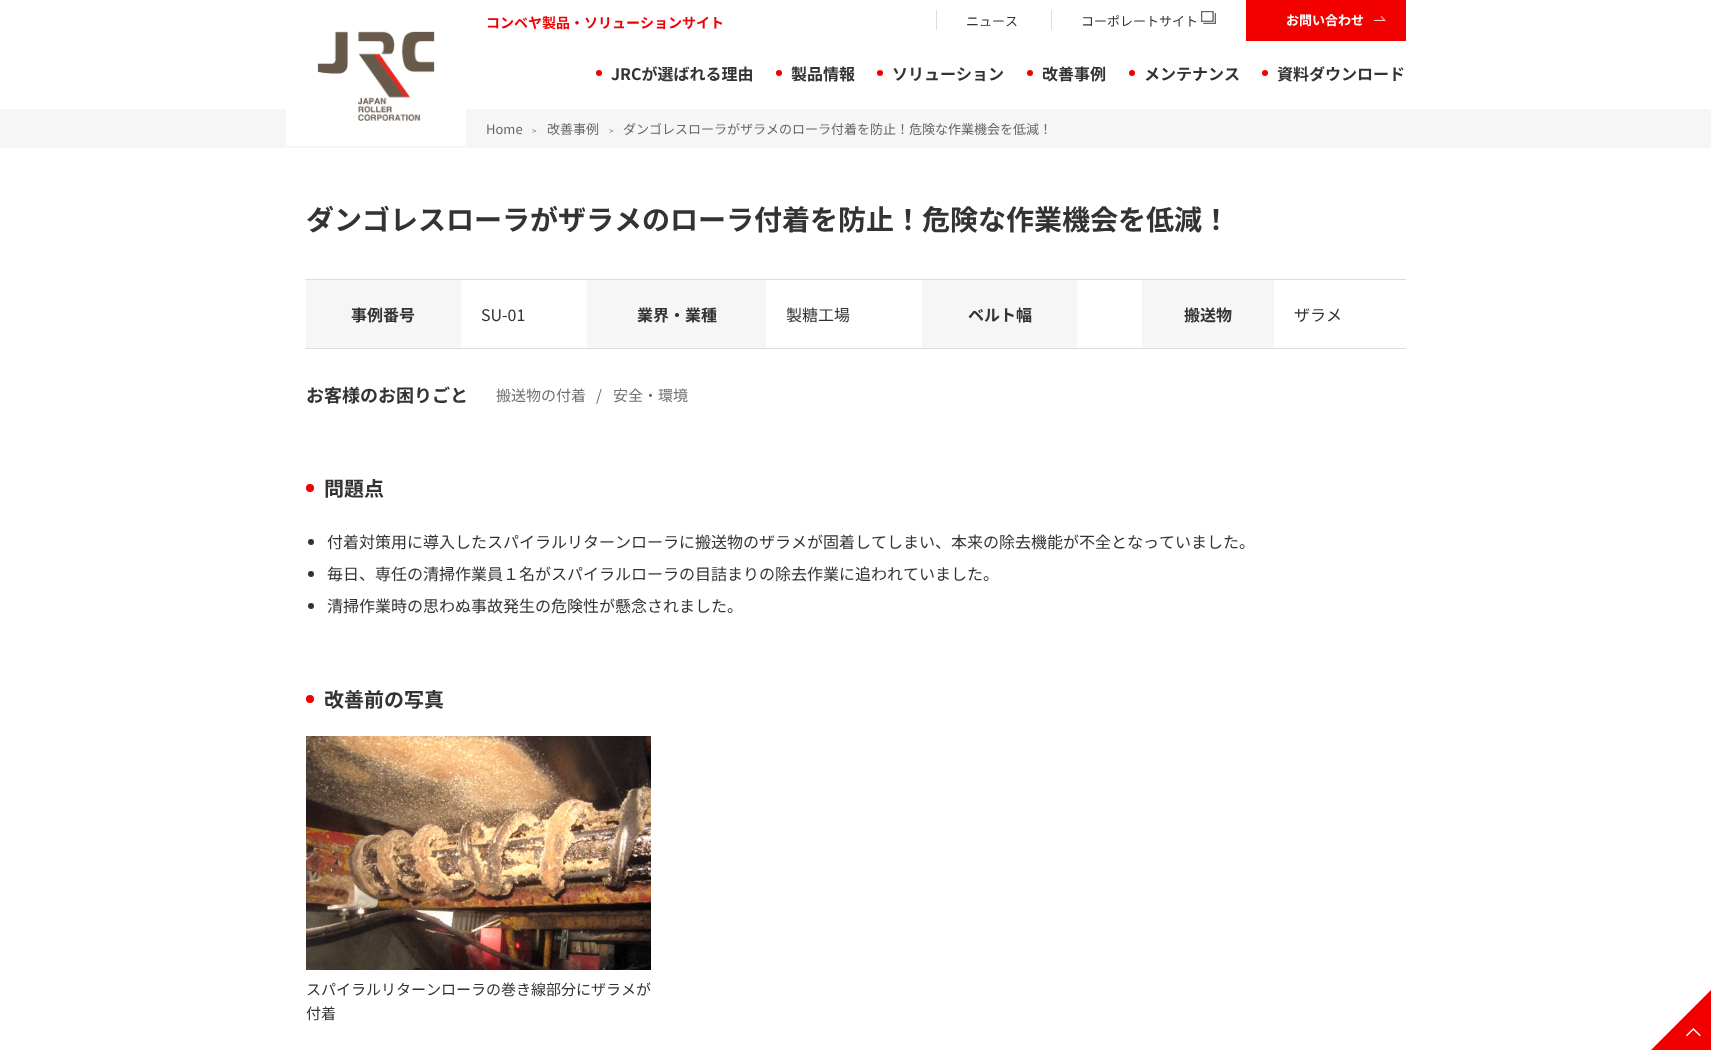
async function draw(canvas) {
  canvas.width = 1711
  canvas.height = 1050
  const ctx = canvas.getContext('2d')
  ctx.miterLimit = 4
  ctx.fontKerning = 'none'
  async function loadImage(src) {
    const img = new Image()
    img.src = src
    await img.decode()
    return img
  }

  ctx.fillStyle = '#fff'
  ctx.fillRect(0, 0, 1711, 1050)
  ctx.font = 'bold 14px Noto Sans JP'
  ctx.fillStyle = '#f00003'
  ctx.fillText('コンベヤ製品・ソリューションサイト', 486, 28)
  ctx.fillStyle = '#ddd'
  ctx.fillRect(936, 10, 1, 20)
  ctx.font = '13px Noto Sans JP'
  ctx.fillStyle = '#333'
  ctx.fillText('ニュース', 966, 26)
  ctx.fillStyle = '#ddd'
  ctx.fillRect(1051, 10, 1, 20)
  ctx.fillStyle = '#333'
  ctx.fillText('コーポレートサイト', 1081, 26)
  ctx.drawImage(await loadImage('image0.png'), 1201, 11, 15, 13)
  ctx.fillStyle = '#f20000'
  ctx.fillRect(1246, 0, 160, 41)
  ctx.drawImage(await loadImage('image1.png'), 1374, 16, 12, 5)
  ctx.font = 'bold 13px Noto Sans JP'
  ctx.fillStyle = '#fff'
  ctx.fillText('お問い合わせ', 1286, 25)
  ctx.fillStyle = '#f6f6f6'
  ctx.fillRect(0, 109, 1711, 39)
  ctx.drawImage(await loadImage('image2.png'), 286, 31, 180, 115)
  ctx.fillStyle = '#f20000'
  ctx.beginPath()
  ctx.arc(599, 73, 3, 0, 2 * Math.PI)
  ctx.fill()
  ctx.font = 'bold 16px Noto Sans JP'
  ctx.fillStyle = '#333'
  ctx.fillText('JRCが選ばれる理由', 611, 80)
  ctx.fillStyle = '#f20000'
  ctx.beginPath()
  ctx.arc(779, 73, 3, 0, 2 * Math.PI)
  ctx.fill()
  ctx.fillStyle = '#333'
  ctx.fillText('製品情報', 791, 80)
  ctx.fillStyle = '#f20000'
  ctx.beginPath()
  ctx.arc(880, 73, 3, 0, 2 * Math.PI)
  ctx.fill()
  ctx.fillStyle = '#333'
  ctx.fillText('ソリューション', 892, 80)
  ctx.fillStyle = '#f20000'
  ctx.beginPath()
  ctx.arc(1030, 73, 3, 0, 2 * Math.PI)
  ctx.fill()
  ctx.fillStyle = '#333'
  ctx.fillText('改善事例', 1042, 80)
  ctx.fillStyle = '#f20000'
  ctx.beginPath()
  ctx.arc(1132, 73, 3, 0, 2 * Math.PI)
  ctx.fill()
  ctx.fillStyle = '#333'
  ctx.fillText('メンテナンス', 1144, 80)
  ctx.fillStyle = '#f20000'
  ctx.beginPath()
  ctx.arc(1265, 73, 3, 0, 2 * Math.PI)
  ctx.fill()
  ctx.fillStyle = '#333'
  ctx.fillText('資料ダウンロード', 1277, 80)
  ctx.font = '13px Noto Sans JP'
  ctx.fillStyle = '#666'
  ctx.fillText('Home', 486, 134)
  ctx.font = '8px Noto Sans JP'
  ctx.fillText('>', 532, 134)
  ctx.font = '13px Noto Sans JP'
  ctx.fillText('改善事例', 547, 134)
  ctx.font = '8px Noto Sans JP'
  ctx.fillText('>', 609, 134)
  ctx.font = '13px Noto Sans JP'
  ctx.fillText('ダンゴレスローラがザラメのローラ付着を防止！危険な作業機会を低減！', 623, 134)
  ctx.font = 'bold 28px Noto Sans JP'
  ctx.fillStyle = '#333'
  ctx.fillText('ダンゴレスローラがザラメのローラ付着を防止！危険な作業機会を低減！', 306, 230)
  ctx.fillStyle = '#ddd'
  ctx.fillRect(305, 348, 1101, 1)
  ctx.fillStyle = '#f6f6f6'
  ctx.fillRect(306, 280, 155, 68)
  ctx.font = 'bold 16px Noto Sans JP'
  ctx.fillStyle = '#333'
  ctx.fillText('事例番号', 351, 321)
  ctx.font = '16px Noto Sans JP'
  ctx.fillText('SU-01', 481, 321)
  ctx.fillStyle = '#f6f6f6'
  ctx.fillRect(587, 280, 179, 68)
  ctx.font = 'bold 16px Noto Sans JP'
  ctx.fillStyle = '#333'
  ctx.fillText('業界・業種', 637, 321)
  ctx.font = '16px Noto Sans JP'
  ctx.fillText('製糖工場', 786, 321)
  ctx.fillStyle = '#f6f6f6'
  ctx.fillRect(922, 280, 155, 68)
  ctx.font = 'bold 16px Noto Sans JP'
  ctx.fillStyle = '#333'
  ctx.fillText('ベルト幅', 968, 321)
  ctx.fillStyle = '#f6f6f6'
  ctx.fillRect(1142, 280, 132, 68)
  ctx.fillStyle = '#333'
  ctx.fillText('搬送物', 1184, 321)
  ctx.fillStyle = '#ddd'
  ctx.fillRect(305, 279, 1101, 1)
  ctx.font = '16px Noto Sans JP'
  ctx.fillStyle = '#333'
  ctx.fillText('ザラメ', 1294, 321)
  ctx.font = 'bold 18px Noto Sans JP'
  ctx.fillText('お客様のお困りごと', 306, 402)
  ctx.font = '15px Noto Sans JP'
  ctx.fillStyle = '#707070'
  ctx.fillText('搬送物の付着', 496, 401)
  ctx.fillText('/', 596, 401)
  ctx.fillText('安全・環境', 613, 401)
  ctx.fillStyle = '#f20000'
  ctx.beginPath()
  ctx.arc(310, 488, 4, 0, 2 * Math.PI)
  ctx.fill()
  ctx.font = 'bold 20px Noto Sans JP'
  ctx.fillStyle = '#333'
  ctx.fillText('問題点', 324, 496)
  ctx.beginPath()
  ctx.arc(311, 542, 3, 0, 2 * Math.PI)
  ctx.fill()
  ctx.font = '16px Noto Sans JP'
  ctx.fillText('付着対策用に導入したスパイラルリターンローラに搬送物のザラメが固着してしまい、本来の除去機能が不全となっていました。', 327, 548)
  ctx.beginPath()
  ctx.arc(311, 574, 3, 0, 2 * Math.PI)
  ctx.fill()
  ctx.fillText('毎日、専任の清掃作業員１名がスパイラルローラの目詰まりの除去作業に追われていました。', 327, 580)
  ctx.beginPath()
  ctx.arc(311, 606, 3, 0, 2 * Math.PI)
  ctx.fill()
  ctx.fillText('清掃作業時の思わぬ事故発生の危険性が懸念されました。', 327, 612)
  ctx.fillStyle = '#f20000'
  ctx.beginPath()
  ctx.arc(310, 699, 4, 0, 2 * Math.PI)
  ctx.fill()
  ctx.font = 'bold 20px Noto Sans JP'
  ctx.fillStyle = '#333'
  ctx.fillText('改善前の写真', 324, 707)
  ctx.drawImage(await loadImage('image3.png'), 306, 736, 345, 234)
  ctx.font = '15px Noto Sans JP'
  ctx.fillText('スパイラルリターンローラの巻き線部分にザラメが', 306, 995)
  ctx.fillText('付着', 306, 1019)
  ctx.drawImage(await loadImage('image4.png'), 1651, 990, 60, 60)
}

draw(document.querySelector('canvas'))
